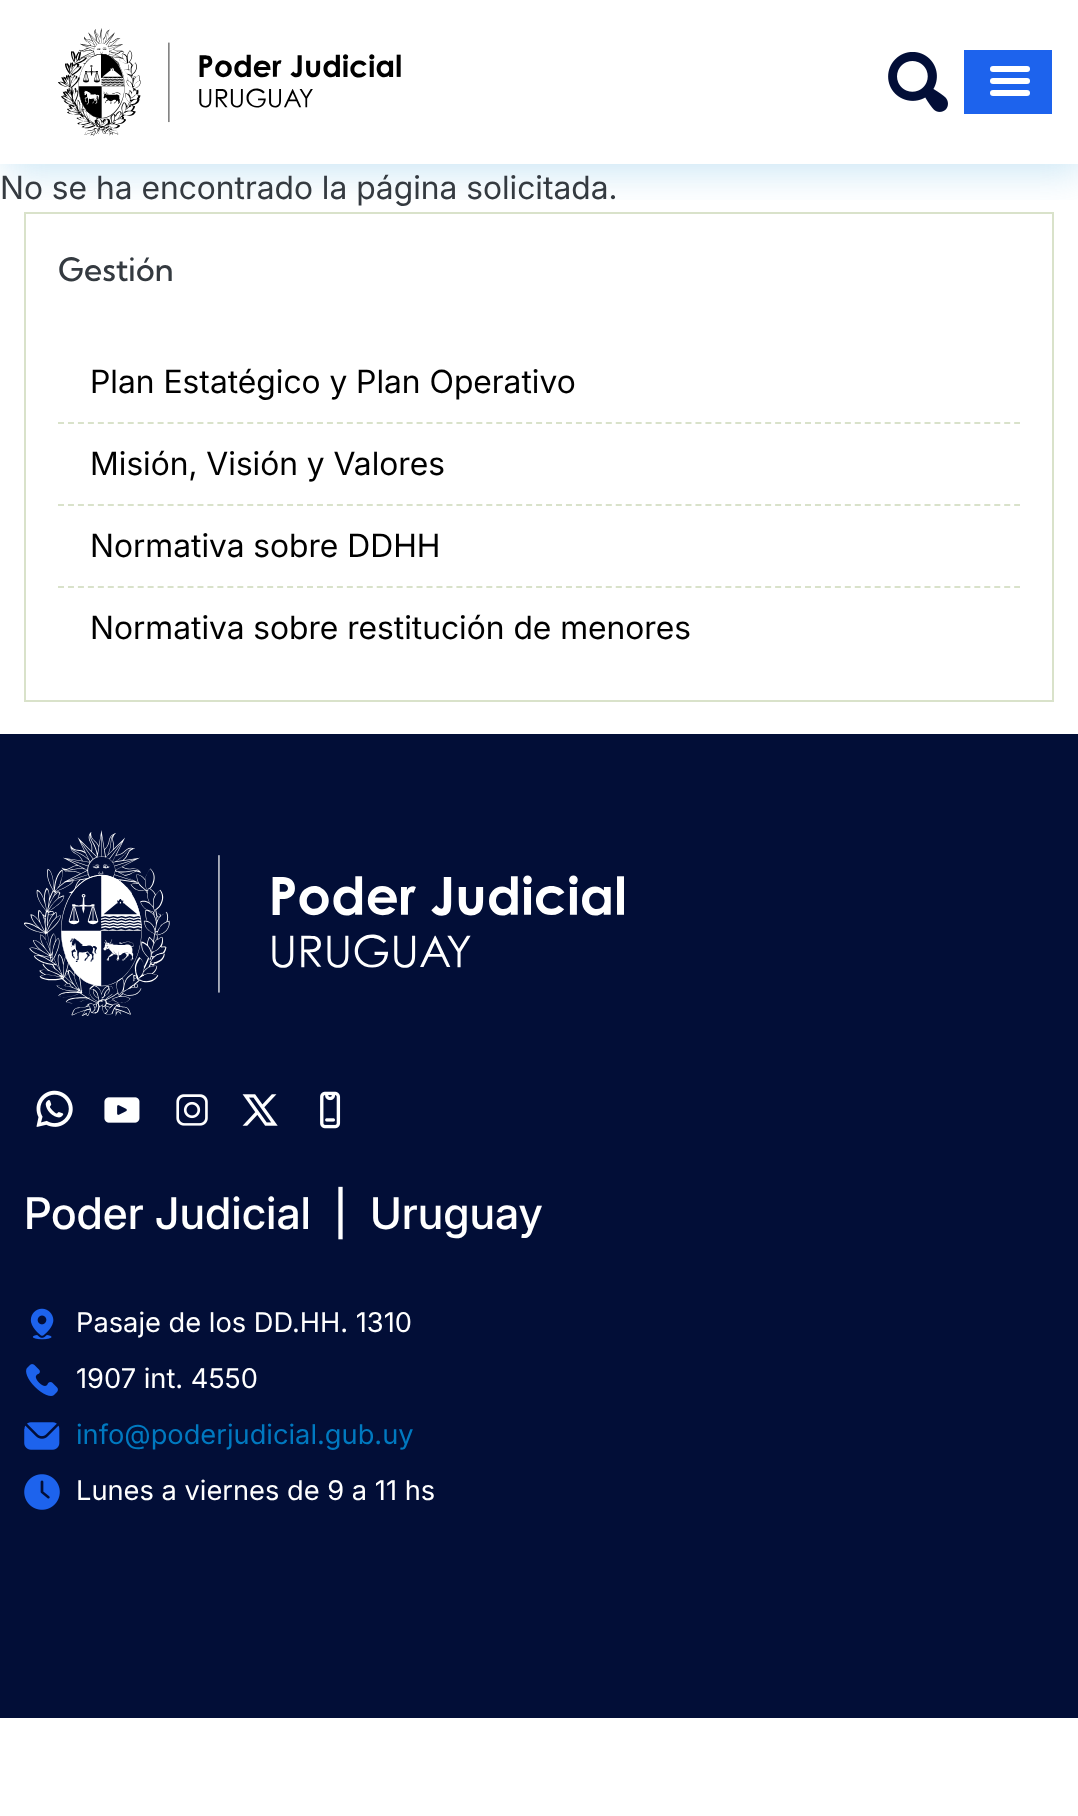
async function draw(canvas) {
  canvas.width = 1078
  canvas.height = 1816
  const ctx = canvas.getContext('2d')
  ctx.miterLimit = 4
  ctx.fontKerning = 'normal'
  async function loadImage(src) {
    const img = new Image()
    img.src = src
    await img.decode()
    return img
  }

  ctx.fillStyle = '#fff'
  ctx.fillRect(0, 0, 1078, 1816)
  ctx.strokeStyle = '#d9e2ca'
  ctx.lineWidth = 2
  ctx.strokeRect(25, 213, 1028, 488)
  ctx.save()
  ctx.beginPath()
  ctx.rect(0, 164, 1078, 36)
  ctx.clip()
  ctx.fillStyle = '#43a6dc4d'
  ctx.filter = 'blur(20px)'
  ctx.beginPath()
  ctx.rect(6, 6, 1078, 164)
  ctx.fill()
  ctx.filter = 'none'
  ctx.restore()
  ctx.drawImage(await loadImage('image0.png'), 58, 28, 343, 108)
  ctx.drawImage(await loadImage('image1.png'), 888, 52, 60, 60)
  ctx.fillStyle = '#1d63ed'
  ctx.fillRect(964, 50, 88, 64)
  ctx.fillStyle = '#fff'
  ctx.beginPath()
  ctx.roundRect(990, 66, 40, 6, 3)
  ctx.fill()
  ctx.beginPath()
  ctx.roundRect(990, 78, 40, 6, 3)
  ctx.fill()
  ctx.beginPath()
  ctx.roundRect(990, 90, 40, 6, 3)
  ctx.fill()
  ctx.font = '32px Inter'
  ctx.fillStyle = '#343a40'
  ctx.fillText('No se ha encontrado la página solicitada.', 0, 199)
  ctx.font = '500 32px Kumbh Sans'
  ctx.fillText('Gestión', 58, 281)
  ctx.beginPath()
  ctx.moveTo(58, 423)
  ctx.lineTo(1020, 423)
  ctx.setLineDash([6, 3.96])
  ctx.stroke()
  ctx.font = '32px Inter'
  ctx.fillStyle = '#000'
  ctx.fillText('Plan Estatégico y Plan Operativo', 90, 393)
  ctx.beginPath()
  ctx.moveTo(58, 505)
  ctx.lineTo(1020, 505)
  ctx.stroke()
  ctx.fillText('Misión, Visión y Valores', 90, 475)
  ctx.beginPath()
  ctx.moveTo(58, 587)
  ctx.lineTo(1020, 587)
  ctx.stroke()
  ctx.fillText('Normativa sobre DDHH', 90, 557)
  ctx.fillText('Normativa sobre restitución de menores', 90, 639)
  ctx.fillStyle = '#020e37'
  ctx.fillRect(0, 734, 1078, 984)
  ctx.drawImage(await loadImage('image2.png'), 24, 830, 600, 186)
  ctx.drawImage(await loadImage('image3.png'), 36, 1090, 37, 37)
  ctx.drawImage(await loadImage('image4.png'), 104, 1097, 36, 26)
  ctx.drawImage(await loadImage('image5.png'), 176, 1094, 32, 32)
  ctx.drawImage(await loadImage('image6.png'), 242, 1094, 36, 32)
  ctx.drawImage(await loadImage('image7.png'), 320, 1091, 21, 38)
  ctx.font = '500 43.8px Inter'
  ctx.fillStyle = '#fff'
  ctx.fillText('Poder Judicial  |  Uruguay', 24, 1229)
  ctx.drawImage(await loadImage('image8.png'), 30, 1308, 24, 32)
  ctx.font = '27.25px "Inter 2"'
  ctx.fillText('Pasaje de los DD.HH. 1310', 76, 1332)
  ctx.drawImage(await loadImage('image9.png'), 26, 1364, 32, 32)
  ctx.fillText('1907 int. 4550', 76, 1388)
  ctx.drawImage(await loadImage('image10.png'), 24, 1422, 36, 28)
  ctx.fillStyle = '#0079c0'
  ctx.fillText('info@poderjudicial.gub.uy', 76, 1444)
  ctx.drawImage(await loadImage('image11.png'), 24, 1474, 36, 36)
  ctx.fillStyle = '#fff'
  ctx.fillText('Lunes a viernes de 9 a 11 hs', 76, 1500)
}

draw(document.querySelector('canvas'))
